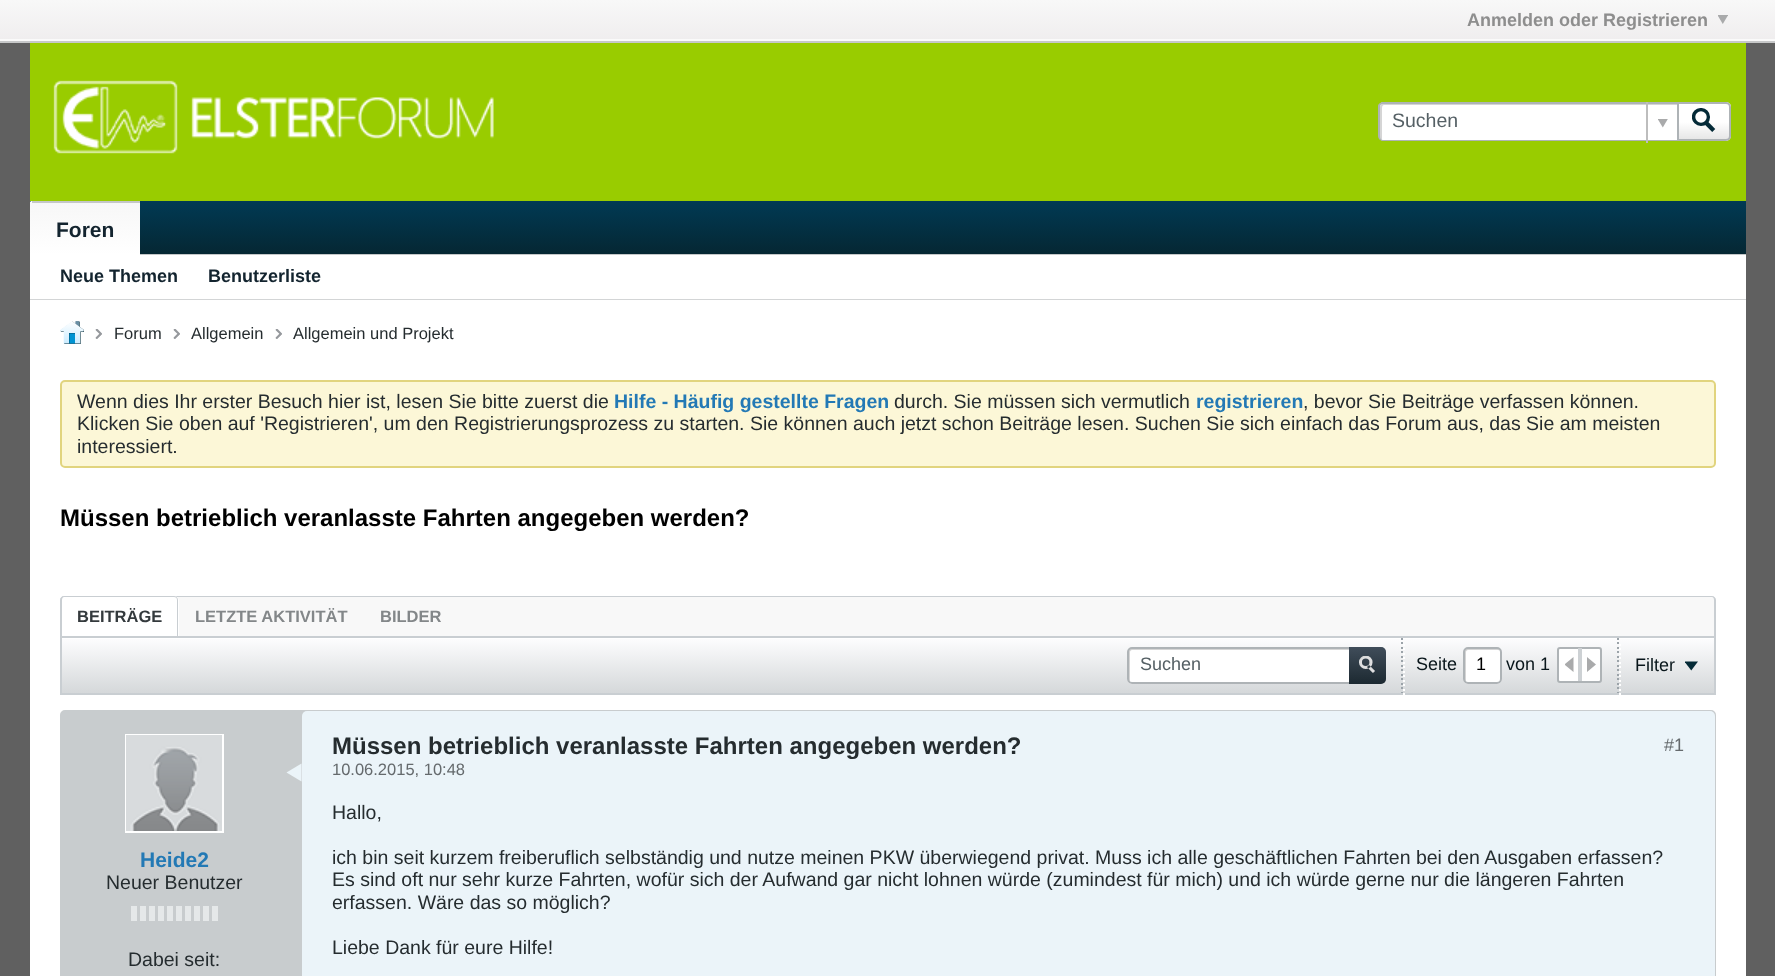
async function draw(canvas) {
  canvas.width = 1775
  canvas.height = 976
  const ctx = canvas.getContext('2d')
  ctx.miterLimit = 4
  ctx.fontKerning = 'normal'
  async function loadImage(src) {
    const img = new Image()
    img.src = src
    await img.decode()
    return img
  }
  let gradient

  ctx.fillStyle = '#606060'
  ctx.fillRect(0, 0, 1775, 976)
  gradient = ctx.createLinearGradient(888, 0, 888, 42)
  gradient.addColorStop(0, '#f8f8f8')
  gradient.addColorStop(1, '#efedee')
  ctx.fillStyle = gradient
  ctx.fillRect(0, 0, 1775, 39)
  ctx.font = 'bold 18px Liberation Sans'
  ctx.fillStyle = '#8e8e8e'
  ctx.fillText('Anmelden oder Registrieren', 1467, 26)
  ctx.drawImage(await loadImage('image0.png'), 1718, 15, 10, 9)
  ctx.fillStyle = '#fafafa'
  ctx.fillRect(0, 39, 1775, 2)
  ctx.fillStyle = '#c7c8c9'
  ctx.fillRect(0, 41, 1775, 2)
  ctx.fillStyle = '#9c0'
  ctx.fillRect(30, 43, 1716, 158)
  ctx.drawImage(await loadImage('image1.png'), 53, 80, 441, 74)
  ctx.fillStyle = '#fff'
  ctx.beginPath()
  ctx.roundRect(1379, 102, 298, 39, [5, 0, 0, 5])
  ctx.fill()
  ctx.fillStyle = '#d5d5d5'
  ctx.beginPath()
  ctx.moveTo(1384, 105)
  ctx.lineTo(1677, 105)
  ctx.lineTo(1677, 104)
  ctx.lineTo(1383, 104)
  ctx.bezierCurveTo(1381, 104, 1380, 105, 1380, 107)
  ctx.lineTo(1380, 137)
  ctx.bezierCurveTo(1380, 138, 1381, 140, 1382, 140)
  ctx.lineTo(1382, 138)
  ctx.lineTo(1382, 108)
  ctx.bezierCurveTo(1382, 106, 1383, 105, 1384, 105)
  ctx.closePath()
  ctx.fill()
  ctx.fillStyle = '#aeb3b6'
  ctx.beginPath()
  ctx.moveTo(1383, 102)
  ctx.lineTo(1677, 102)
  ctx.lineTo(1677, 141)
  ctx.lineTo(1383, 141)
  ctx.bezierCurveTo(1381, 141, 1378, 139, 1378, 136)
  ctx.lineTo(1378, 106)
  ctx.bezierCurveTo(1378, 104, 1381, 102, 1383, 102)
  ctx.closePath()
  ctx.moveTo(1383, 104)
  ctx.lineTo(1677, 104)
  ctx.lineTo(1677, 140)
  ctx.lineTo(1383, 140)
  ctx.bezierCurveTo(1381, 140, 1380, 138, 1380, 136)
  ctx.lineTo(1380, 106)
  ctx.bezierCurveTo(1380, 105, 1381, 104, 1383, 104)
  ctx.closePath()
  ctx.fill('evenodd')
  ctx.font = '19.5px Liberation Sans'
  ctx.fillStyle = '#556065'
  ctx.fillText('Suchen', 1392, 127)
  ctx.fillStyle = '#bdbdbd'
  ctx.fillRect(1646, 102, 2, 41)
  ctx.drawImage(await loadImage('image2.png'), 1658, 119, 10, 9)
  ctx.fillStyle = '#fff'
  ctx.beginPath()
  ctx.roundRect(1677, 102, 54, 39, [0, 5, 5, 0])
  ctx.fill()
  ctx.save()
  ctx.beginPath()
  ctx.roundRect(1677, 102, 54, 39, [0, 5, 5, 0])
  ctx.clip()
  gradient = ctx.createLinearGradient(1704, 140, 1704, 104)
  gradient.addColorStop(0, '#0000001a')
  gradient.addColorStop(0.5, '#00000000')
  gradient.addColorStop(0.5, '#ffffff00')
  gradient.addColorStop(1, '#ffffffb3')
  ctx.fillStyle = gradient
  ctx.fillRect(1679, 104, 52, 36)
  ctx.restore()
  ctx.beginPath()
  ctx.roundRect(1678, 103, 52, 37, [0, 4, 4, 0])
  ctx.strokeStyle = '#aeb3b6'
  ctx.lineWidth = 2
  ctx.stroke()
  ctx.drawImage(await loadImage('image3.png'), 1692, 108, 24, 24)
  gradient = ctx.createLinearGradient(888, 201, 888, 254)
  gradient.addColorStop(0, '#013a54')
  gradient.addColorStop(1, '#052733')
  ctx.fillStyle = gradient
  ctx.fillRect(30, 201, 1716, 53)
  ctx.fillStyle = '#c4c7c8'
  ctx.fillRect(140, 254, 1606, 1)
  gradient = ctx.createLinearGradient(85, 150, 85, 203)
  gradient.addColorStop(0, '#f7f7f7')
  gradient.addColorStop(1, '#fff')
  ctx.fillStyle = gradient
  ctx.beginPath()
  ctx.roundRect(30, 201, 110, 2, [1.5, 1.5, 0, 0])
  ctx.fill()
  gradient = ctx.createLinearGradient(85, 203, 85, 255)
  gradient.addColorStop(0, '#f7f7f7')
  gradient.addColorStop(1, '#fff')
  ctx.fillStyle = gradient
  ctx.fillRect(30, 203, 110, 52)
  ctx.fillStyle = '#c4c7c8'
  ctx.fillRect(32, 201, 108, 2)
  ctx.font = 'bold 21px Liberation Sans'
  ctx.fillStyle = '#13242f'
  ctx.fillText('Foren', 56, 237)
  ctx.fillStyle = '#fff'
  ctx.fillRect(30, 255, 1716, 44)
  ctx.fillStyle = '#d3d5d6'
  ctx.fillRect(30, 299, 1716, 1)
  ctx.font = 'bold 18px Liberation Sans'
  ctx.fillStyle = '#13242f'
  ctx.fillText('Neue Themen', 60, 282)
  ctx.fillText('Benutzerliste', 208, 282)
  ctx.fillStyle = '#fff'
  ctx.fillRect(30, 300, 1716, 676)
  ctx.drawImage(await loadImage('image4.png'), 60, 321, 24, 23)
  ctx.drawImage(await loadImage('image5.png'), 95, 329, 7, 10)
  ctx.font = '16.5px Liberation Sans'
  ctx.fillStyle = '#252c2f'
  ctx.fillText('Forum', 114, 339)
  ctx.drawImage(await loadImage('image5.png'), 173, 329, 7, 10)
  ctx.fillText('Allgemein', 191, 339)
  ctx.drawImage(await loadImage('image5.png'), 275, 329, 7, 10)
  ctx.fillText('Allgemein und Projekt', 293, 339)
  ctx.fillStyle = '#fcf7d7'
  ctx.beginPath()
  ctx.roundRect(61, 381, 1654, 86, 4)
  ctx.fill()
  ctx.strokeStyle = '#e1d47e'
  ctx.stroke()
  ctx.font = '19.5px Liberation Sans'
  ctx.fillStyle = '#252c2f'
  ctx.fillText('Wenn dies Ihr erster Besuch hier ist, lesen Sie bitte zuerst die', 77, 408)
  ctx.font = 'bold 19.5px Liberation Sans'
  ctx.fillStyle = '#2379b5'
  ctx.fillText('Hilfe - Häufig gestellte Fragen', 614, 408)
  ctx.font = '19.5px Liberation Sans'
  ctx.fillStyle = '#252c2f'
  ctx.fillText('durch. Sie müssen sich vermutlich', 894, 408)
  ctx.font = 'bold 19.5px Liberation Sans'
  ctx.fillStyle = '#2379b5'
  ctx.fillText('registrieren', 1196, 408)
  ctx.font = '19.5px Liberation Sans'
  ctx.fillStyle = '#252c2f'
  ctx.fillText(', bevor Sie Beiträge verfassen können.', 1303, 408)
  ctx.fillText('Klicken Sie oben auf \'Registrieren\', um den Registrierungsprozess zu starten. Sie können auch jetzt schon Beiträge lesen. Suchen Sie sich einfach das Forum aus, das Sie am meisten', 77, 430)
  ctx.fillText('interessiert.', 77, 453)
  ctx.font = 'bold 24px Liberation Sans'
  ctx.fillStyle = '#000'
  ctx.fillText('Müssen betrieblich veranlasste Fahrten angegeben werden?', 60, 526)
  ctx.fillStyle = '#f8f8f8'
  ctx.beginPath()
  ctx.roundRect(60, 596, 1656, 40, [5, 5, 0, 0])
  ctx.fill()
  ctx.fillStyle = '#c9ced2'
  ctx.beginPath()
  ctx.moveTo(64, 596)
  ctx.lineTo(1712, 596)
  ctx.bezierCurveTo(1714, 596, 1716, 598, 1716, 600)
  ctx.lineTo(1716, 636)
  ctx.lineTo(60, 636)
  ctx.lineTo(60, 600)
  ctx.bezierCurveTo(60, 598, 62, 596, 64, 596)
  ctx.closePath()
  ctx.moveTo(64, 597)
  ctx.lineTo(1712, 597)
  ctx.bezierCurveTo(1713, 597, 1714, 598, 1714, 600)
  ctx.lineTo(1714, 636)
  ctx.lineTo(62, 636)
  ctx.lineTo(62, 600)
  ctx.bezierCurveTo(62, 598, 63, 597, 64, 597)
  ctx.closePath()
  ctx.fill('evenodd')
  ctx.fillStyle = '#fff'
  ctx.beginPath()
  ctx.roundRect(60, 596, 119, 40, [5, 5, 0, 0])
  ctx.fill()
  ctx.fillStyle = '#c9ced2'
  ctx.beginPath()
  ctx.moveTo(64, 596)
  ctx.lineTo(174, 596)
  ctx.bezierCurveTo(176, 596, 178, 598, 178, 600)
  ctx.lineTo(178, 636)
  ctx.lineTo(60, 636)
  ctx.lineTo(60, 600)
  ctx.bezierCurveTo(60, 598, 62, 596, 64, 596)
  ctx.closePath()
  ctx.moveTo(64, 597)
  ctx.lineTo(174, 597)
  ctx.bezierCurveTo(176, 597, 177, 598, 177, 600)
  ctx.lineTo(177, 636)
  ctx.lineTo(62, 636)
  ctx.lineTo(62, 600)
  ctx.bezierCurveTo(62, 598, 63, 597, 64, 597)
  ctx.closePath()
  ctx.fill('evenodd')
  ctx.font = 'bold 16.5px Liberation Sans'
  ctx.fillStyle = '#343a3d'
  ctx.fillText('BEITRÄGE', 77, 622)
  ctx.fillStyle = '#838789'
  ctx.fillText('LETZTE AKTIVITÄT', 195, 622)
  ctx.fillText('BILDER', 380, 622)
  gradient = ctx.createLinearGradient(888, 637, 888, 693)
  gradient.addColorStop(0, '#fefeff')
  gradient.addColorStop(1, '#d5d8da')
  ctx.fillStyle = gradient
  ctx.fillRect(62, 639, 1652, 54)
  ctx.strokeStyle = '#c9ced2'
  ctx.strokeRect(61, 637, 1654, 57)
  ctx.fillStyle = '#fff'
  ctx.beginPath()
  ctx.roundRect(1127, 647, 259, 37, 5)
  ctx.fill()
  ctx.fillStyle = '#d5d5d5'
  ctx.beginPath()
  ctx.moveTo(1132, 650)
  ctx.lineTo(1383, 650)
  ctx.lineTo(1385, 650)
  ctx.bezierCurveTo(1385, 649, 1383, 648, 1382, 648)
  ctx.lineTo(1131, 648)
  ctx.bezierCurveTo(1129, 648, 1128, 649, 1128, 651)
  ctx.lineTo(1128, 680)
  ctx.bezierCurveTo(1128, 681, 1129, 683, 1130, 683)
  ctx.lineTo(1130, 681)
  ctx.lineTo(1130, 652)
  ctx.bezierCurveTo(1130, 651, 1131, 650, 1132, 650)
  ctx.closePath()
  ctx.fill()
  ctx.beginPath()
  ctx.roundRect(1128, 648, 257, 35, 4)
  ctx.strokeStyle = '#aeb3b6'
  ctx.stroke()
  ctx.font = '18px Liberation Sans'
  ctx.fillStyle = '#556065'
  ctx.fillText('Suchen', 1140, 670)
  gradient = ctx.createLinearGradient(1367, 647, 1367, 684)
  gradient.addColorStop(0, '#404d5a')
  gradient.addColorStop(1, '#1c2931')
  ctx.fillStyle = gradient
  ctx.beginPath()
  ctx.roundRect(1349, 647, 37, 37, [0, 5, 5, 0])
  ctx.fill()
  ctx.drawImage(await loadImage('image6.png'), 1359, 656, 16, 17)
  ctx.drawImage(await loadImage('image7.png'), 1401, 638, 2, 55)
  ctx.drawImage(await loadImage('image8.png'), 1403, 644, 2, 51)
  ctx.fillStyle = '#09161b'
  ctx.fillText('Seite', 1416, 670)
  ctx.fillStyle = '#fff'
  ctx.beginPath()
  ctx.roundRect(1463, 647, 39, 37, 5)
  ctx.fill()
  ctx.fillStyle = '#d5d5d5'
  ctx.beginPath()
  ctx.moveTo(1468, 650)
  ctx.lineTo(1498, 650)
  ctx.lineTo(1500, 650.5)
  ctx.bezierCurveTo(1499.5, 649, 1498.5, 648, 1497, 648)
  ctx.lineTo(1467, 648)
  ctx.bezierCurveTo(1465.5, 648, 1464, 649.5, 1464, 651)
  ctx.lineTo(1464, 680)
  ctx.bezierCurveTo(1464, 681.5, 1465, 682.5, 1466.5, 683)
  ctx.lineTo(1466, 681)
  ctx.lineTo(1466, 652)
  ctx.bezierCurveTo(1466, 651, 1467, 650, 1468, 650)
  ctx.closePath()
  ctx.fill()
  ctx.beginPath()
  ctx.roundRect(1464, 648, 37, 35, 4)
  ctx.stroke()
  ctx.fillStyle = '#000'
  ctx.fillText('1', 1476, 670)
  ctx.fillStyle = '#09161b'
  ctx.fillText('von 1', 1506, 670)
  ctx.fillStyle = '#fff'
  ctx.beginPath()
  ctx.roundRect(1558, 648, 43, 34, 2)
  ctx.fill()
  ctx.stroke()
  ctx.fillStyle = '#cdd1d4'
  ctx.fillRect(1578, 648, 4, 33)
  ctx.drawImage(await loadImage('image9.png'), 1565, 657, 9, 15)
  ctx.drawImage(await loadImage('image10.png'), 1587, 657, 9, 15)
  ctx.drawImage(await loadImage('image7.png'), 1617, 638, 2, 55)
  ctx.drawImage(await loadImage('image8.png'), 1619, 644, 2, 51)
  ctx.fillStyle = '#09161b'
  ctx.fillText('Filter', 1635, 671)
  ctx.drawImage(await loadImage('image11.png'), 1685, 661, 13, 10)
  ctx.fillStyle = '#c8ccce'
  ctx.beginPath()
  ctx.roundRect(61, 711, 1654, 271, 4)
  ctx.fill()
  ctx.strokeStyle = '#c8ccce'
  ctx.stroke()
  ctx.strokeStyle = '#fff'
  ctx.strokeRect(126, 735, 97, 97)
  ctx.drawImage(await loadImage('image12.png'), 126, 735, 96, 96)
  ctx.font = 'bold 21px Liberation Sans'
  ctx.fillStyle = '#2379b5'
  ctx.fillText('Heide2', 140, 867)
  ctx.font = '19.5px Liberation Sans'
  ctx.fillStyle = '#252c2f'
  ctx.fillText('Neuer Benutzer', 106, 889)
  ctx.fillStyle = '#e5e8e9'
  ctx.fillRect(131, 906, 6, 15)
  ctx.fillRect(140, 906, 6, 15)
  ctx.fillRect(149, 906, 6, 15)
  ctx.fillRect(158, 906, 6, 15)
  ctx.fillRect(167, 906, 6, 15)
  ctx.fillRect(176, 906, 6, 15)
  ctx.fillRect(185, 906, 6, 15)
  ctx.fillRect(194, 906, 6, 15)
  ctx.fillRect(203, 906, 6, 15)
  ctx.fillRect(212, 906, 6, 15)
  ctx.fillStyle = '#252c2f'
  ctx.fillText('Dabei seit:', 128, 966)
  ctx.fillStyle = '#ebf4f9'
  ctx.beginPath()
  ctx.roundRect(302, 711, 1413, 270, 5)
  ctx.fill()
  ctx.beginPath()
  ctx.moveTo(301.5, 763.5)
  ctx.lineTo(301.5, 781.5)
  ctx.lineTo(286.5, 772.5)
  ctx.closePath()
  ctx.fill()
  ctx.font = 'bold 24px Liberation Sans'
  ctx.fillStyle = '#252c2f'
  ctx.fillText('Müssen betrieblich veranlasste Fahrten angegeben werden?', 332, 754)
  ctx.font = '16.5px Liberation Sans'
  ctx.fillStyle = '#656a6d'
  ctx.fillText('10.06.2015, 10:48', 332, 775)
  ctx.font = '18px Liberation Sans'
  ctx.fillText('#1', 1664, 751)
  ctx.font = '19.5px Liberation Sans'
  ctx.fillStyle = '#252c2f'
  ctx.fillText('Hallo,', 332, 819)
  ctx.fillText('ich bin seit kurzem freiberuflich selbständig und nutze meinen PKW überwiegend privat. Muss ich alle geschäftlichen Fahrten bei den Ausgaben erfassen?', 332, 864)
  ctx.fillText('Es sind oft nur sehr kurze Fahrten, wofür sich der Aufwand gar nicht lohnen würde (zumindest für mich) und ich würde gerne nur die längeren Fahrten', 332, 886)
  ctx.fillText('erfassen. Wäre das so möglich?', 332, 909)
  ctx.fillText('Liebe Dank für eure Hilfe!', 332, 954)
}

draw(document.querySelector('canvas'))
